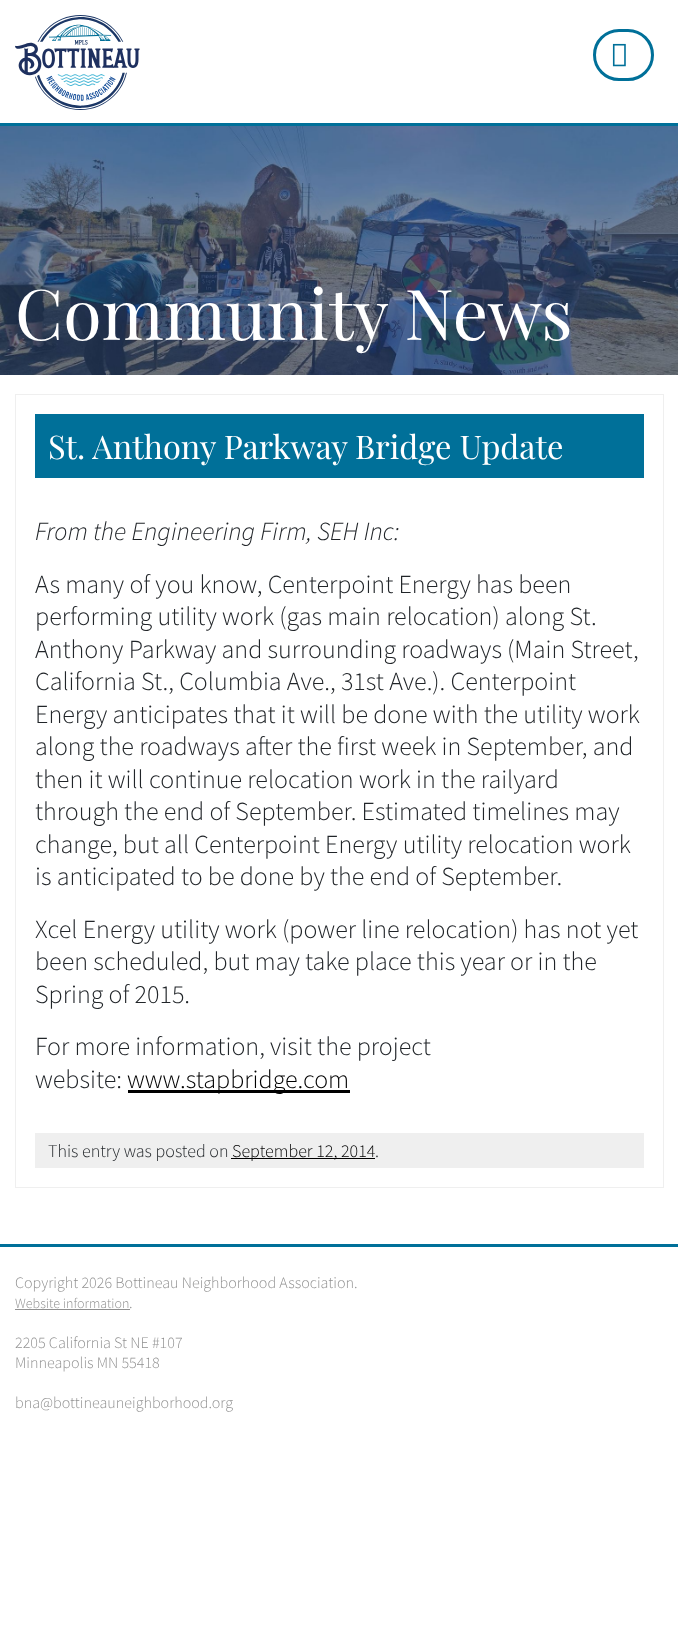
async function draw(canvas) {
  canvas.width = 678
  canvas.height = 1636
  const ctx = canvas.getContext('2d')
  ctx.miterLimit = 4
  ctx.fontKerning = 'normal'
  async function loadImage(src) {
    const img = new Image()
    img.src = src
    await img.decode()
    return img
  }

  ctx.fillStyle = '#fff'
  ctx.fillRect(0, 0, 678, 1636)
  ctx.fillStyle = '#007099'
  ctx.fillRect(0, 123, 678, 3)
  ctx.drawImage(await loadImage('image0.png'), 15, 15, 125, 95)
  ctx.beginPath()
  ctx.roundRect(594.5, 30.5, 58, 49, 24.5)
  ctx.strokeStyle = '#007099'
  ctx.lineWidth = 3
  ctx.stroke()
  ctx.drawImage(await loadImage('image1.png'), 612, 43, 14, 24)
  ctx.drawImage(await loadImage('image2.png'), 0, 126, 678, 249)
  ctx.font = '70px Playfair Display'
  ctx.fillStyle = '#fff'
  ctx.fillText('Community News', 15, 340)
  ctx.strokeStyle = '#efefef'
  ctx.lineWidth = 1
  ctx.strokeRect(15.5, 394.5, 648, 793)
  ctx.fillStyle = '#007099'
  ctx.fillRect(35, 414, 609, 64)
  ctx.font = '32.6px Playfair Display'
  ctx.fillStyle = '#fff'
  ctx.fillText('St. Anthony Parkway Bridge Update', 48, 459)
  ctx.font = 'italic 300 26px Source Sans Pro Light'
  ctx.fillStyle = '#212529'
  ctx.fillText('From the Engineering Firm, SEH Inc:', 35, 540)
  ctx.font = '300 26px Source Sans Pro Light'
  ctx.fillText('As many of you know, Centerpoint Energy has been', 35, 593)
  ctx.fillText('performing utility work (gas main relocation) along St.', 35, 625)
  ctx.fillText('Anthony Parkway and surrounding roadways (Main Street,', 35, 658)
  ctx.fillText('California St., Columbia Ave., 31st Ave.). Centerpoint', 35, 690)
  ctx.fillText('Energy anticipates that it will be done with the utility work', 35, 723)
  ctx.fillText('along the roadways after the first week in September, and', 35, 755)
  ctx.fillText('then it will continue relocation work in the railyard', 35, 788)
  ctx.fillText('through the end of September. Estimated timelines may', 35, 820)
  ctx.fillText('change, but all Centerpoint Energy utility relocation work', 35, 853)
  ctx.fillText('is anticipated to be done by the end of September.', 35, 885)
  ctx.fillText('Xcel Energy utility work (power line relocation) has not yet', 35, 938)
  ctx.fillText('been scheduled, but may take place this year or in the', 35, 970)
  ctx.fillText('Spring of 2015.', 35, 1003)
  ctx.fillText('For more information, visit the project', 35, 1055)
  ctx.fillText('website:', 35, 1088)
  ctx.fillStyle = '#000'
  ctx.fillRect(128, 1090, 222, 3)
  ctx.fillText('www.stapbridge.com', 127, 1088)
  ctx.fillStyle = '#efefef'
  ctx.fillRect(35, 1133, 609, 35)
  ctx.font = '300 18px Source Sans Pro Light'
  ctx.fillStyle = '#212529'
  ctx.fillText('This entry was posted on', 48, 1157)
  ctx.fillStyle = '#000'
  ctx.fillRect(231, 1158, 144, 1)
  ctx.fillText('September 12, 2014', 232, 1157)
  ctx.fillStyle = '#212529'
  ctx.fillText('.', 375, 1157)
  ctx.fillStyle = '#007099'
  ctx.fillRect(0, 1244, 678, 3)
  ctx.font = '300 16px Source Sans Pro Light'
  ctx.fillStyle = '#909090'
  ctx.fillText('Copyright 2026 Bottineau Neighborhood Association.', 15, 1288)
  ctx.font = '300 14px Source Sans Pro Light'
  ctx.fillText('Website information', 15, 1308)
  ctx.fillRect(15, 1309, 115, 1)
  ctx.font = '300 16px Source Sans Pro Light'
  ctx.fillText('.', 129, 1308)
  ctx.fillText('2205 California St NE #107', 15, 1348)
  ctx.fillText('Minneapolis MN 55418', 15, 1368)
  ctx.fillText('bna@bottineauneighborhood.org', 15, 1408)
}

draw(document.querySelector('canvas'))
